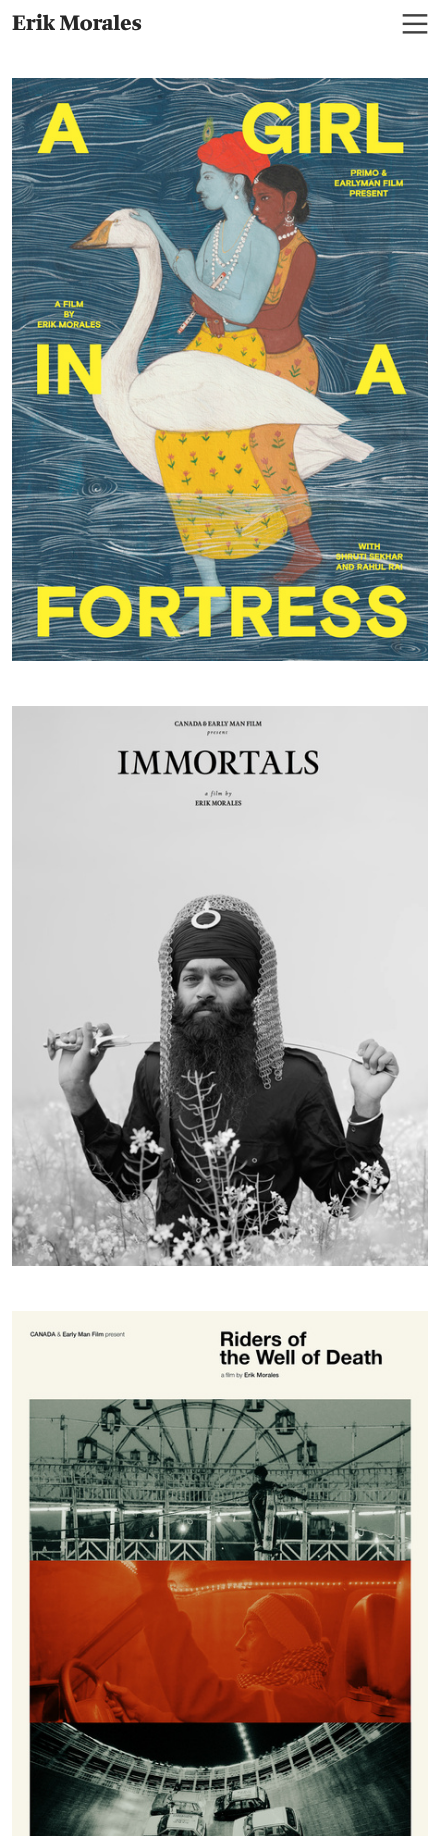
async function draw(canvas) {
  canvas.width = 440
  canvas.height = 1836
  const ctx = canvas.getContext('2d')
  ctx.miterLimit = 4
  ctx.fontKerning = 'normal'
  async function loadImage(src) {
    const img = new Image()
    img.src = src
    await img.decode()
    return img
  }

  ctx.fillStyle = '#fff'
  ctx.fillRect(0, 0, 440, 1836)
  ctx.font = 'bold 21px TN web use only'
  ctx.fillStyle = '#262626'
  ctx.fillText('Erik Morales', 12, 30)
  ctx.drawImage(await loadImage('image0.png'), 12, 78, 416, 583)
  ctx.drawImage(await loadImage('image1.png'), 12, 706, 416, 560)
  ctx.drawImage(await loadImage('image2.png'), 12, 1311, 416, 525)
  ctx.drawImage(await loadImage('image3.png'), 402, 14, 26, 20)
}

draw(document.querySelector('canvas'))
